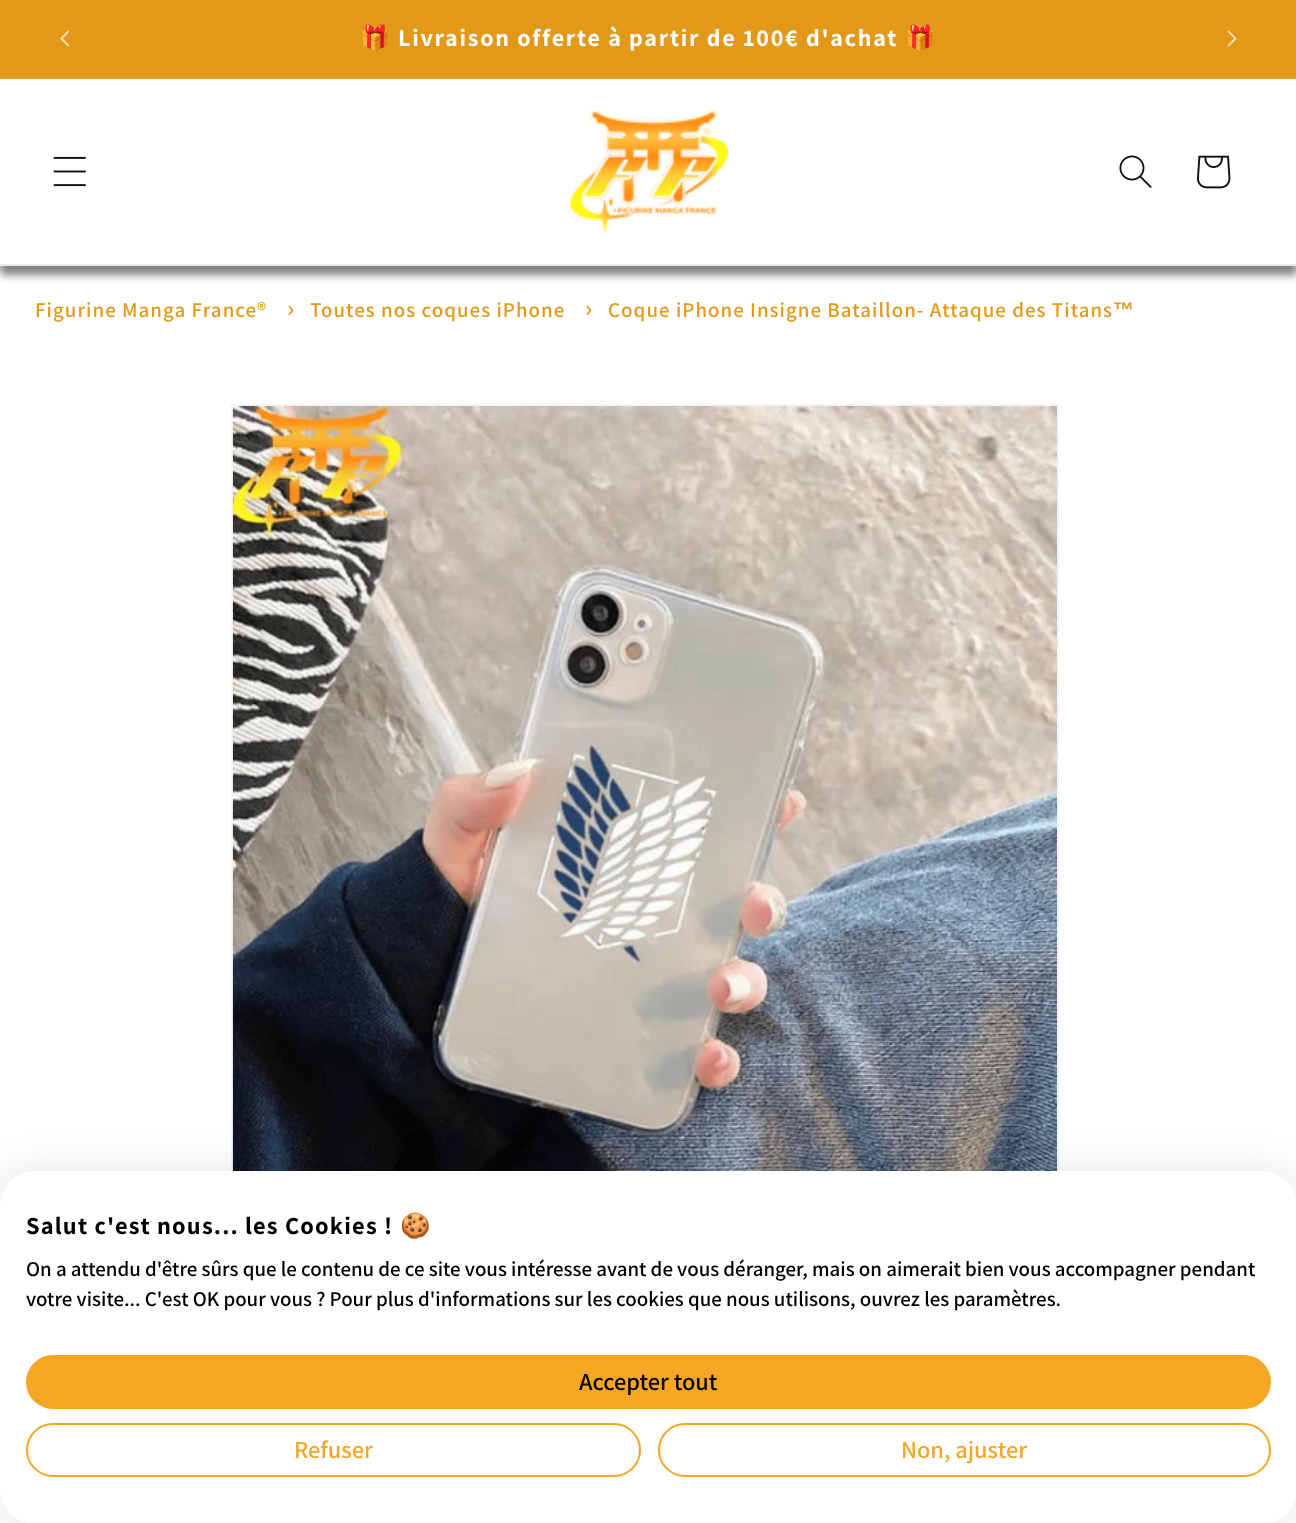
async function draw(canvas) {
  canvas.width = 1296
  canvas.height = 1523
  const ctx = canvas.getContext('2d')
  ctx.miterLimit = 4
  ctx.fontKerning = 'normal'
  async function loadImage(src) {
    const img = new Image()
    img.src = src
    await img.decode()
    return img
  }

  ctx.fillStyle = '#fff'
  ctx.fillRect(0, 0, 1296, 1523)
  ctx.save()
  ctx.beginPath()
  ctx.rect(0, 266, 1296, 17)
  ctx.clip()
  ctx.fillStyle = '#00000080'
  ctx.filter = 'blur(4.5px)'
  ctx.beginPath()
  ctx.rect(0, 88, 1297, 187)
  ctx.fill()
  ctx.filter = 'none'
  ctx.restore()
  ctx.fillStyle = '#e49818'
  ctx.fillRect(0, 0, 1296, 77)
  ctx.fillStyle = '#e6a02a'
  ctx.fillRect(0, 77, 1296, 2)
  ctx.drawImage(await loadImage('image0.png'), 60, 30, 10, 17)
  ctx.letterSpacing = '1.75px'
  ctx.font = 'bold 24.15px Noto Color Emoji'
  ctx.fillStyle = '#fff'
  ctx.fillText('🎁', 360, 46)
  ctx.font = 'bold 24.15px Assistant'
  ctx.fillText('Livraison offerte à partir de 100€ d\'achat', 398, 46)
  ctx.font = 'bold 24.15px Noto Color Emoji'
  ctx.fillText('🎁', 905, 46)
  ctx.drawImage(await loadImage('image1.png'), 1227, 30, 10, 17)
  ctx.fillStyle = '#ececec'
  ctx.fillRect(0, 264, 1296, 2)
  ctx.drawImage(await loadImage('image2.png'), 53, 156, 33, 31)
  ctx.drawImage(await loadImage('image3.png'), 570, 110, 158, 125)
  ctx.drawImage(await loadImage('image4.png'), 1119, 155, 33, 33)
  ctx.drawImage(await loadImage('image5.png'), 1197, 155, 34, 34)
  ctx.letterSpacing = '1.05px'
  ctx.font = '600 21px Assistant'
  ctx.fillStyle = '#e49818'
  ctx.fillText('Figurine Manga France®', 35, 317)
  ctx.font = '600 26px Assistant'
  ctx.fillText('›', 287, 317)
  ctx.font = '600 21px Assistant'
  ctx.fillText('Toutes nos coques iPhone', 310, 317)
  ctx.font = '600 26px Assistant'
  ctx.fillText('›', 585, 317)
  ctx.font = '600 21px Assistant'
  ctx.fillText('Coque iPhone Insigne Bataillon- Attaque des Titans', 608, 317)
  ctx.font = 'bold 21px Liberation Sans'
  ctx.fillText('™', 1113, 317)
  ctx.strokeStyle = '#f3f3f3'
  ctx.lineWidth = 2
  ctx.strokeRect(232, 405, 826, 826)
  ctx.drawImage(await loadImage('image6.png'), 232, 406, 825, 765)
  ctx.fillStyle = '#0000001a'
  ctx.filter = 'blur(21px)'
  ctx.beginPath()
  ctx.roundRect(0, 1171, 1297, 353, 35)
  ctx.fill()
  ctx.filter = 'none'
  ctx.fillStyle = '#fff'
  ctx.beginPath()
  ctx.roundRect(0, 1171, 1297, 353, 35)
  ctx.fill()
  ctx.letterSpacing = '1.2px'
  ctx.font = 'bold 24.5px Assistant'
  ctx.fillStyle = '#000'
  ctx.fillText('Salut c\'est nous... les Cookies !', 26, 1234)
  ctx.font = 'bold 24.5px Noto Color Emoji'
  ctx.fillText('🍪', 400, 1234)
  ctx.letterSpacing = '0px'
  ctx.font = '600 21px Assistant'
  ctx.fillText('On a attendu d\'être sûrs que le contenu de ce site vous intéresse avant de vous déranger, mais on aimerait bien vous accompagner pendant', 26, 1276)
  ctx.fillText('votre visite... C\'est OK pour vous ? Pour plus d\'informations sur les cookies que nous utilisons, ouvrez les paramètres.', 26, 1306)
  ctx.fillStyle = '#f5a623'
  ctx.beginPath()
  ctx.roundRect(27, 1356, 1243, 52, 26)
  ctx.fill()
  ctx.strokeStyle = '#f5a623'
  ctx.stroke()
  ctx.font = '600 24.5px Assistant'
  ctx.fillStyle = '#000'
  ctx.fillText('Accepter tout', 579, 1390)
  ctx.beginPath()
  ctx.roundRect(27, 1424, 613, 52, 26)
  ctx.stroke()
  ctx.fillStyle = '#f5a623'
  ctx.fillText('Refuser', 294, 1458)
  ctx.beginPath()
  ctx.roundRect(659, 1424, 611, 52, 26)
  ctx.stroke()
  ctx.fillText('Non, ajuster', 901, 1458)
}

draw(document.querySelector('canvas'))
